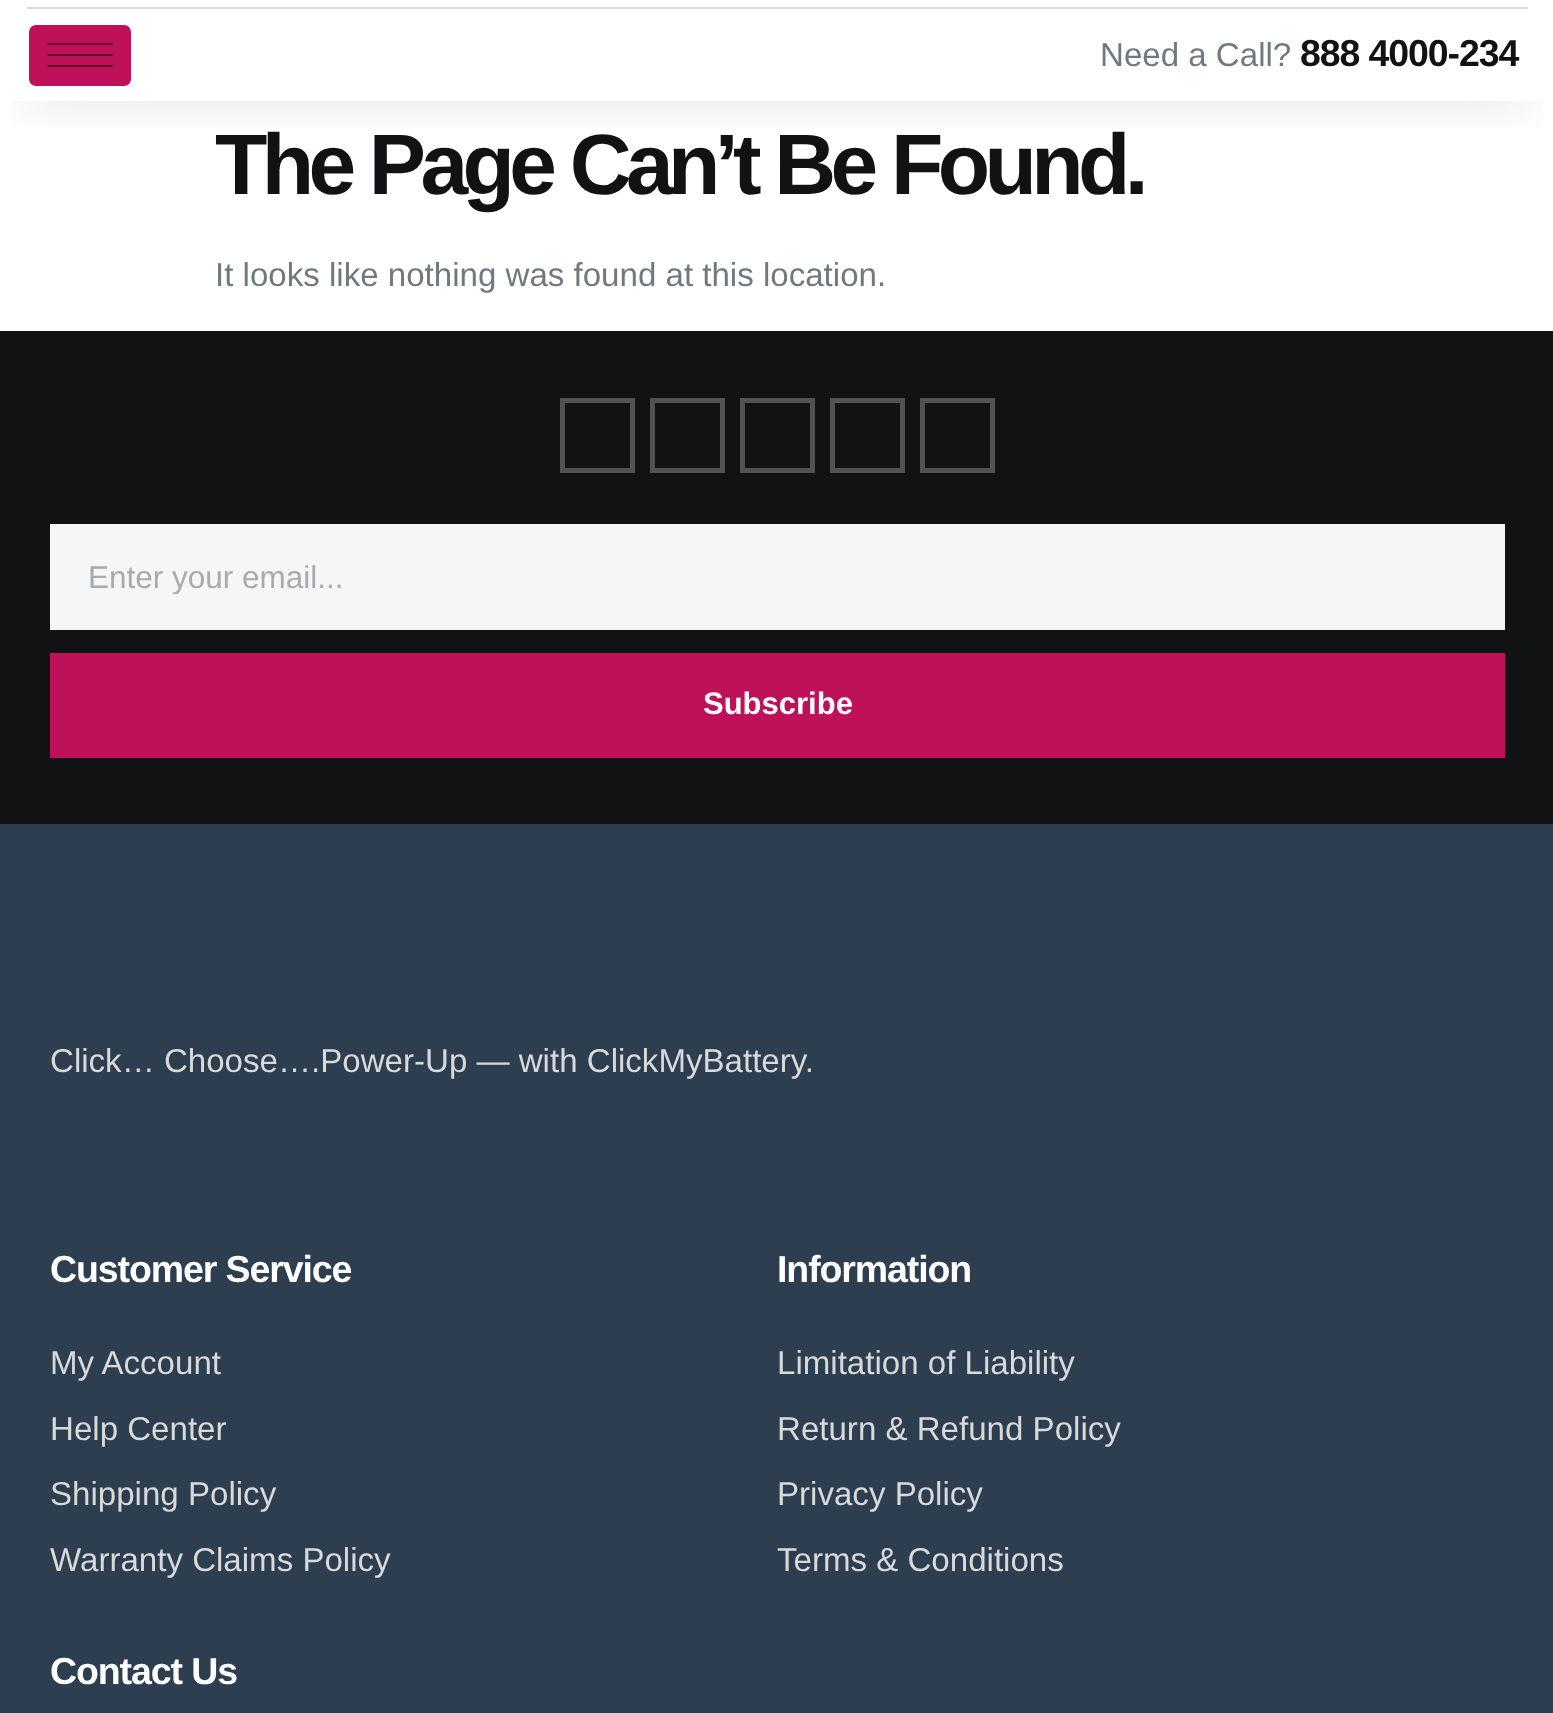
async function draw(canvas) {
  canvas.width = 1553
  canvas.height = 1713
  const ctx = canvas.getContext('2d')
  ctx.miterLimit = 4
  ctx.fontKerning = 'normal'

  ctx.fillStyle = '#fff'
  ctx.fillRect(0, 0, 1553, 1713)
  ctx.save()
  ctx.beginPath()
  ctx.rect(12, 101, 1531, 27)
  ctx.clip()
  ctx.fillStyle = '#00000026'
  ctx.filter = 'blur(34px)'
  ctx.beginPath()
  ctx.rect(23, -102, 1509, 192)
  ctx.fill()
  ctx.filter = 'none'
  ctx.restore()
  ctx.fillStyle = '#d9d9d9'
  ctx.fillRect(27, 7, 1501, 2)
  ctx.fillStyle = '#bf1159'
  ctx.beginPath()
  ctx.roundRect(29, 25, 102, 61, 7)
  ctx.fill()
  ctx.fillStyle = '#60092d'
  ctx.fillRect(47, 43, 66, 2)
  ctx.fillRect(47, 54, 66, 2)
  ctx.fillRect(47, 65, 66, 2)
  ctx.font = '33.1px Liberation Sans'
  ctx.fillStyle = '#707980'
  ctx.fillText('Need a Call?', 1100, 66)
  ctx.letterSpacing = '-1.1px'
  ctx.font = 'bold 37.5px Liberation Sans'
  ctx.fillStyle = '#111213'
  ctx.fillText('888 4000-234', 1300, 66)
  ctx.letterSpacing = '-5.6px'
  ctx.font = 'bold 85.75px Liberation Sans'
  ctx.fillText('The Page Can’t Be Found.', 215, 194)
  ctx.letterSpacing = '0px'
  ctx.font = '33.1px Liberation Sans'
  ctx.fillStyle = '#707980'
  ctx.fillText('It looks like nothing was found at this location.', 215, 286)
  ctx.fillStyle = '#111213'
  ctx.fillRect(0, 331, 1553, 493)
  ctx.strokeStyle = '#515253'
  ctx.lineWidth = 5
  ctx.strokeRect(562.5, 400.5, 70, 70)
  ctx.strokeRect(652.5, 400.5, 70, 70)
  ctx.strokeRect(742.5, 400.5, 70, 70)
  ctx.strokeRect(832.5, 400.5, 70, 70)
  ctx.strokeRect(922.5, 400.5, 70, 70)
  ctx.fillStyle = '#f6f6f6'
  ctx.fillRect(50, 524, 1455, 106)
  ctx.save()
  ctx.beginPath()
  ctx.rect(88, 558, 1379, 36)
  ctx.clip()
  ctx.font = '31.5px Liberation Sans'
  ctx.fillStyle = '#a6abaf'
  ctx.fillText('Enter your email...', 88, 588)
  ctx.restore()
  ctx.fillStyle = '#bf1159'
  ctx.fillRect(50, 653, 1455, 105)
  ctx.font = 'bold 31px Liberation Sans'
  ctx.fillStyle = '#fff'
  ctx.fillText('Subscribe', 703, 714)
  ctx.fillStyle = '#2c3e50'
  ctx.fillRect(0, 824, 1553, 889)
  ctx.font = '33.1px Liberation Sans'
  ctx.fillStyle = '#d9d9d9'
  ctx.fillText('Click… Choose….Power-Up — with ClickMyBattery.', 50, 1072)
  ctx.letterSpacing = '-1.1px'
  ctx.font = 'bold 37.5px Liberation Sans'
  ctx.fillStyle = '#fff'
  ctx.fillText('Customer Service', 50, 1282)
  ctx.letterSpacing = '0px'
  ctx.font = '33.1px Liberation Sans'
  ctx.fillStyle = '#d9d9d9'
  ctx.fillText('My Account', 50, 1374)
  ctx.fillText('Help Center', 50, 1440)
  ctx.fillText('Shipping Policy', 50, 1505)
  ctx.fillText('Warranty Claims Policy', 50, 1571)
  ctx.letterSpacing = '-1.1px'
  ctx.font = 'bold 37.5px Liberation Sans'
  ctx.fillStyle = '#fff'
  ctx.fillText('Information', 777, 1282)
  ctx.letterSpacing = '0px'
  ctx.font = '33.1px Liberation Sans'
  ctx.fillStyle = '#d9d9d9'
  ctx.fillText('Limitation of Liability', 777, 1374)
  ctx.fillText('Return & Refund Policy', 777, 1440)
  ctx.fillText('Privacy Policy', 777, 1505)
  ctx.fillText('Terms & Conditions', 777, 1571)
  ctx.letterSpacing = '-1.1px'
  ctx.font = 'bold 37.5px Liberation Sans'
  ctx.fillStyle = '#fff'
  ctx.fillText('Contact Us', 50, 1684)
}

draw(document.querySelector('canvas'))
